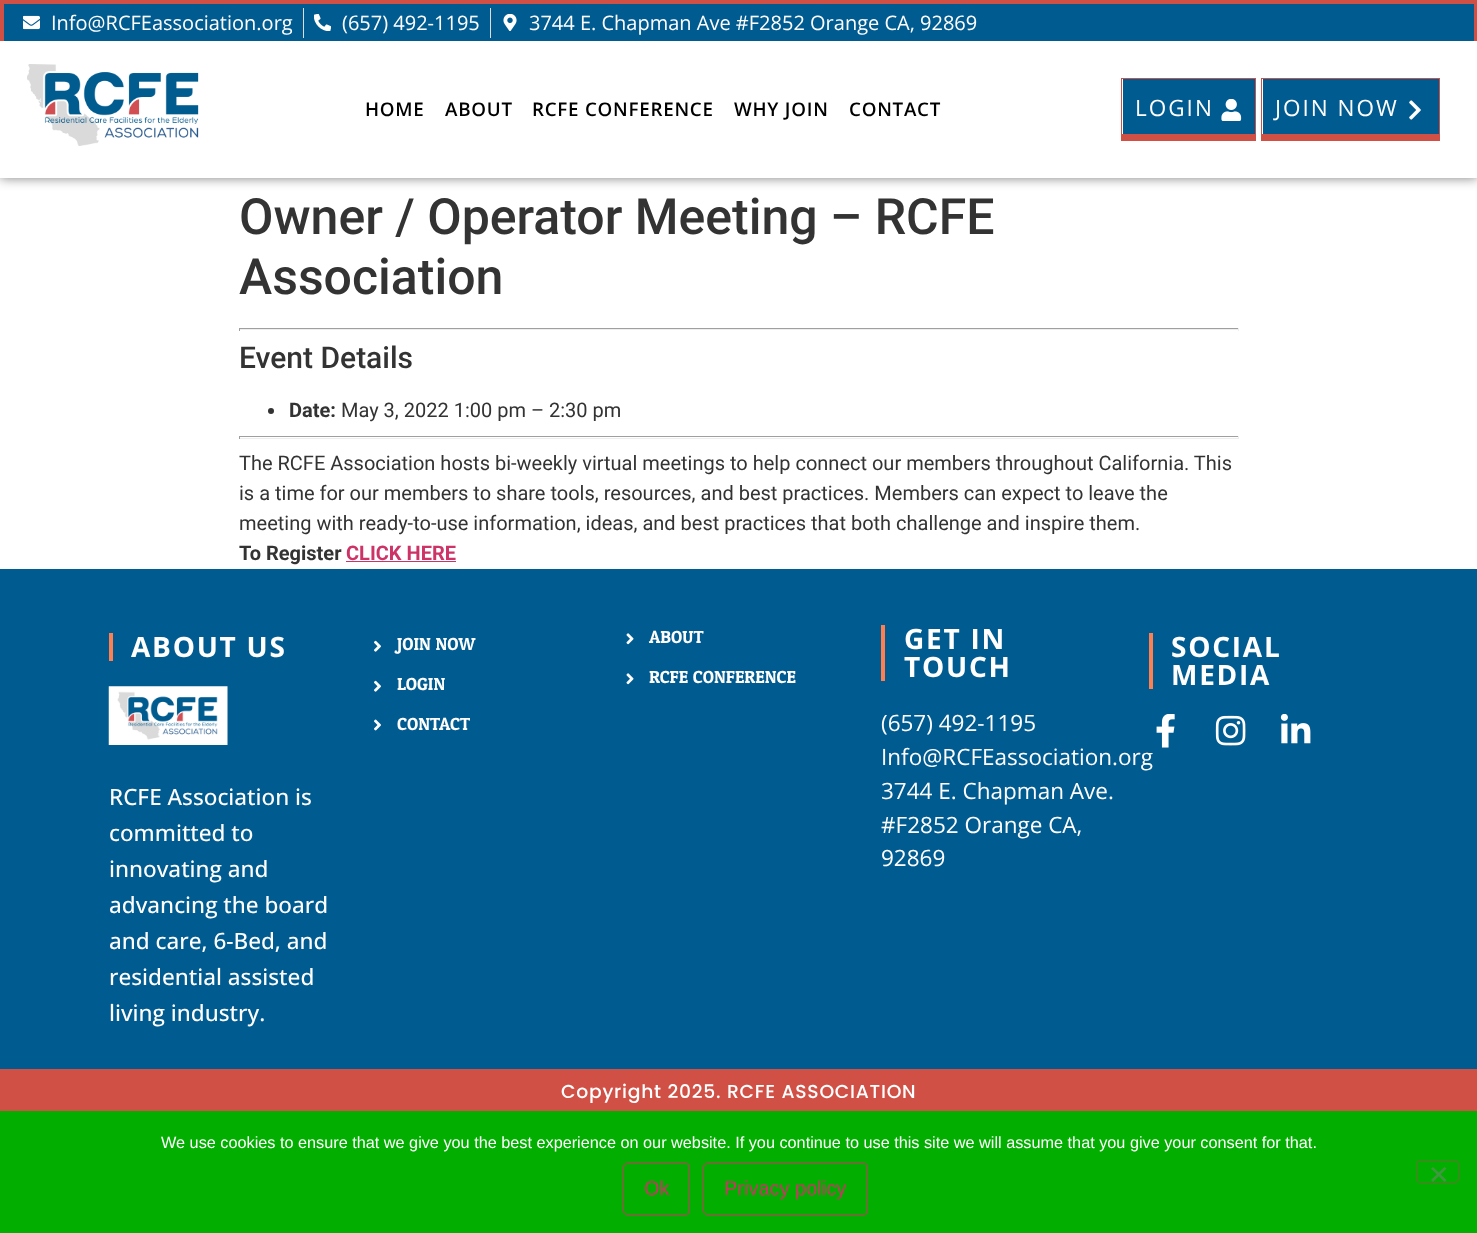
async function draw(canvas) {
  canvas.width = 1477
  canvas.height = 1233
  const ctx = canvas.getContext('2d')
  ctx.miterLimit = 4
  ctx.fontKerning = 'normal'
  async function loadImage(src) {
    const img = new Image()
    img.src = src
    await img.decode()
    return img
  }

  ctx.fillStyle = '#fff'
  ctx.fillRect(0, 0, 1477, 1233)
  ctx.fillStyle = '#00000080'
  ctx.filter = 'blur(6px)'
  ctx.beginPath()
  ctx.rect(0, 41, 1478, 137)
  ctx.fill()
  ctx.filter = 'none'
  ctx.fillStyle = '#005b90'
  ctx.fillRect(4, 4, 1470, 37)
  ctx.fillStyle = '#d05046'
  ctx.fillRect(0, 0, 1477, 4)
  ctx.fillRect(1474, 0, 3, 41)
  ctx.fillRect(0, 0, 4, 41)
  ctx.drawImage(await loadImage('image0.png'), 23, 15, 17, 15)
  ctx.font = '20px Open Sans'
  ctx.fillStyle = '#fff'
  ctx.fillText('Info@RCFEassociation.org', 51, 30)
  ctx.fillStyle = '#ddd'
  ctx.fillRect(303, 8, 1, 30)
  ctx.drawImage(await loadImage('image1.png'), 314, 14, 17, 17)
  ctx.fillStyle = '#fff'
  ctx.fillText('(657) 492-1195', 342, 30)
  ctx.fillStyle = '#ddd'
  ctx.fillRect(490, 8, 1, 30)
  ctx.drawImage(await loadImage('image2.png'), 503, 14, 14, 17)
  ctx.fillStyle = '#fff'
  ctx.fillText('3744 E. Chapman Ave #F2852 Orange CA, 92869', 529, 30)
  ctx.fillRect(0, 41, 1477, 137)
  ctx.drawImage(await loadImage('image3.png'), 27, 64, 172, 82)
  ctx.letterSpacing = '0.75px'
  ctx.font = '600 18.75px Open Sans'
  ctx.fillStyle = '#000'
  ctx.fillText('HOME', 365, 116)
  ctx.fillText('ABOUT', 445, 116)
  ctx.fillText('RCFE CONFERENCE', 532, 116)
  ctx.fillText('WHY JOIN', 734, 116)
  ctx.fillText('CONTACT', 849, 116)
  ctx.fillStyle = '#005b90'
  ctx.fillRect(1123, 79, 132, 55)
  ctx.fillStyle = '#d05046'
  ctx.fillRect(1121, 78, 135, 1)
  ctx.fillRect(1255, 78, 1, 63)
  ctx.fillRect(1121, 134, 135, 7)
  ctx.fillRect(1121, 78, 1, 63)
  ctx.letterSpacing = '2px'
  ctx.font = '22.5px Open Sans'
  ctx.fillStyle = '#fff'
  ctx.fillText('LOGIN', 1135, 116)
  ctx.drawImage(await loadImage('image4.png'), 1221, 99, 21, 22)
  ctx.fillStyle = '#005b90'
  ctx.fillRect(1263, 79, 176, 55)
  ctx.fillStyle = '#d05046'
  ctx.fillRect(1261, 78, 179, 1)
  ctx.fillRect(1439, 78, 1, 63)
  ctx.fillRect(1261, 134, 179, 7)
  ctx.fillRect(1261, 78, 1, 63)
  ctx.fillStyle = '#fff'
  ctx.fillText('JOIN NOW', 1275, 116)
  ctx.drawImage(await loadImage('image5.png'), 1409, 100, 12, 20)
  ctx.letterSpacing = '0px'
  ctx.font = '500 50px Roboto'
  ctx.fillStyle = '#333'
  ctx.fillText('Owner / Operator Meeting – RCFE', 239, 234)
  ctx.fillText('Association', 239, 294)
  ctx.fillStyle = '#9f9f9f'
  ctx.fillRect(239, 328, 1000, 1)
  ctx.fillStyle = '#eee'
  ctx.fillRect(1238, 328, 1, 3)
  ctx.fillRect(239, 329, 1000, 1)
  ctx.fillStyle = '#9f9f9f'
  ctx.fillRect(239, 328, 1, 3)
  ctx.font = '500 30px Roboto'
  ctx.fillStyle = '#333'
  ctx.fillText('Event Details', 239, 368)
  ctx.beginPath()
  ctx.arc(271, 411, 3, 0, 2 * Math.PI)
  ctx.fill()
  ctx.font = 'bold 20px Roboto'
  ctx.fillText('Date:', 289, 417)
  ctx.font = '20px Roboto'
  ctx.fillText('May 3, 2022 1:00 pm – 2:30 pm', 341, 417)
  ctx.fillStyle = '#9f9f9f'
  ctx.fillRect(239, 436, 1000, 1)
  ctx.fillStyle = '#eee'
  ctx.fillRect(1238, 436, 1, 3)
  ctx.fillRect(239, 438, 1000, 1)
  ctx.fillStyle = '#9f9f9f'
  ctx.fillRect(239, 436, 1, 3)
  ctx.fillStyle = '#333'
  ctx.fillText('The RCFE Association hosts bi-weekly virtual meetings to help connect our members throughout California. This', 239, 470)
  ctx.fillText('is a time for our members to share tools, resources, and best practices. Members can expect to leave the', 239, 500)
  ctx.fillText('meeting with ready-to-use information, ideas, and best practices that both challenge and inspire them.', 239, 530)
  ctx.font = 'bold 20px Roboto'
  ctx.fillText('To Register', 239, 560)
  ctx.fillStyle = '#c36'
  ctx.fillText('CLICK HERE', 346, 560)
  ctx.fillRect(346, 561, 110, 1)
  ctx.fillStyle = '#005b90'
  ctx.fillRect(0, 569, 1477, 500)
  ctx.fillStyle = '#ff7f50'
  ctx.fillRect(109, 633, 4, 28)
  ctx.letterSpacing = '1.75px'
  ctx.font = 'bold 28px Open Sans'
  ctx.fillStyle = '#fff'
  ctx.fillText('ABOUT US', 131, 657)
  ctx.drawImage(await loadImage('image6.png'), 108, 686, 120, 59)
  ctx.letterSpacing = '0px'
  ctx.font = '500 22.5px Open Sans'
  ctx.fillText('RCFE Association is', 109, 805)
  ctx.fillText('committed to', 109, 841)
  ctx.fillText('innovating and', 109, 877)
  ctx.fillText('advancing the board', 109, 913)
  ctx.fillText('and care, 6-Bed, and', 109, 949)
  ctx.fillText('residential assisted', 109, 985)
  ctx.fillText('living industry.', 109, 1021)
  ctx.drawImage(await loadImage('image7.png'), 374, 640, 7, 12)
  ctx.font = '17.5px Odor Mean Chey'
  ctx.fillText('JOIN NOW', 397, 650)
  ctx.drawImage(await loadImage('image7.png'), 374, 680, 7, 12)
  ctx.fillText('LOGIN', 397, 690)
  ctx.drawImage(await loadImage('image8.png'), 374, 719, 7, 12)
  ctx.fillText('CONTACT', 397, 730)
  ctx.drawImage(await loadImage('image9.png'), 626, 633, 8, 12)
  ctx.fillText('ABOUT', 649, 643)
  ctx.drawImage(await loadImage('image9.png'), 626, 673, 8, 12)
  ctx.fillText('RCFE CONFERENCE', 649, 683)
  ctx.fillStyle = '#ff7f50'
  ctx.fillRect(881, 625, 4, 56)
  ctx.letterSpacing = '1.75px'
  ctx.font = 'bold 28px Open Sans'
  ctx.fillStyle = '#fff'
  ctx.fillText('GET IN', 904, 649)
  ctx.fillText('TOUCH', 904, 677)
  ctx.letterSpacing = '0px'
  ctx.font = '22.5px Open Sans'
  ctx.fillText('(657) 492-1195', 881, 731)
  ctx.fillText('Info@RCFEassociation.org', 881, 765)
  ctx.fillText('3744 E. Chapman Ave.', 881, 799)
  ctx.fillText('#F2852 Orange CA,', 881, 833)
  ctx.fillText('92869', 881, 866)
  ctx.fillStyle = '#ff7f50'
  ctx.fillRect(1149, 633, 4, 56)
  ctx.letterSpacing = '1.75px'
  ctx.font = 'bold 28px Open Sans'
  ctx.fillStyle = '#fff'
  ctx.fillText('SOCIAL', 1171, 657)
  ctx.fillText('MEDIA', 1171, 685)
  ctx.drawImage(await loadImage('image10.png'), 1156, 714, 19, 34)
  ctx.drawImage(await loadImage('image11.png'), 1215, 715, 31, 31)
  ctx.drawImage(await loadImage('image12.png'), 1280, 714, 31, 30)
  ctx.fillStyle = '#d05046'
  ctx.fillRect(0, 1069, 1477, 42)
  ctx.letterSpacing = '0.75px'
  ctx.font = '500 18.75px Poppins'
  ctx.fillStyle = '#fff'
  ctx.fillText('Copyright 2025. RCFE ASSOCIATION', 561, 1098)
  ctx.fillStyle = '#02af00'
  ctx.fillRect(0, 1111, 1477, 122)
  ctx.letterSpacing = '0px'
  ctx.font = '16.25px Liberation Sans'
  ctx.fillStyle = '#fff'
  ctx.fillText('We use cookies to ensure that we give you the best experience on our website. If you continue to use this site we will assume that you give your consent for that.', 161, 1148)
  ctx.beginPath()
  ctx.roundRect(1416.5, 1160.5, 42, 22, 3.5)
  ctx.strokeStyle = '#677133'
  ctx.stroke()
  ctx.fillStyle = '#419840'
  ctx.beginPath()
  ctx.moveTo(1444.5, 1167)
  ctx.lineTo(1446.5, 1168.5)
  ctx.lineTo(1433, 1182)
  ctx.lineTo(1431, 1180)
  ctx.closePath()
  ctx.fill()
  ctx.beginPath()
  ctx.moveTo(1431, 1168.5)
  ctx.lineTo(1433, 1167)
  ctx.lineTo(1446.5, 1180)
  ctx.lineTo(1444.5, 1182)
  ctx.closePath()
  ctx.fill()
  ctx.beginPath()
  ctx.roundRect(623.5, 1163.5, 66, 51, 3.5)
  ctx.strokeStyle = '#c36'
  ctx.stroke()
  ctx.font = '20px Liberation Sans'
  ctx.fillStyle = '#c36'
  ctx.fillText('Ok', 644, 1195)
  ctx.beginPath()
  ctx.roundRect(703.5, 1163.5, 164, 51, 3.5)
  ctx.stroke()
  ctx.fillText('Privacy policy', 724, 1195)
}

draw(document.querySelector('canvas'))
